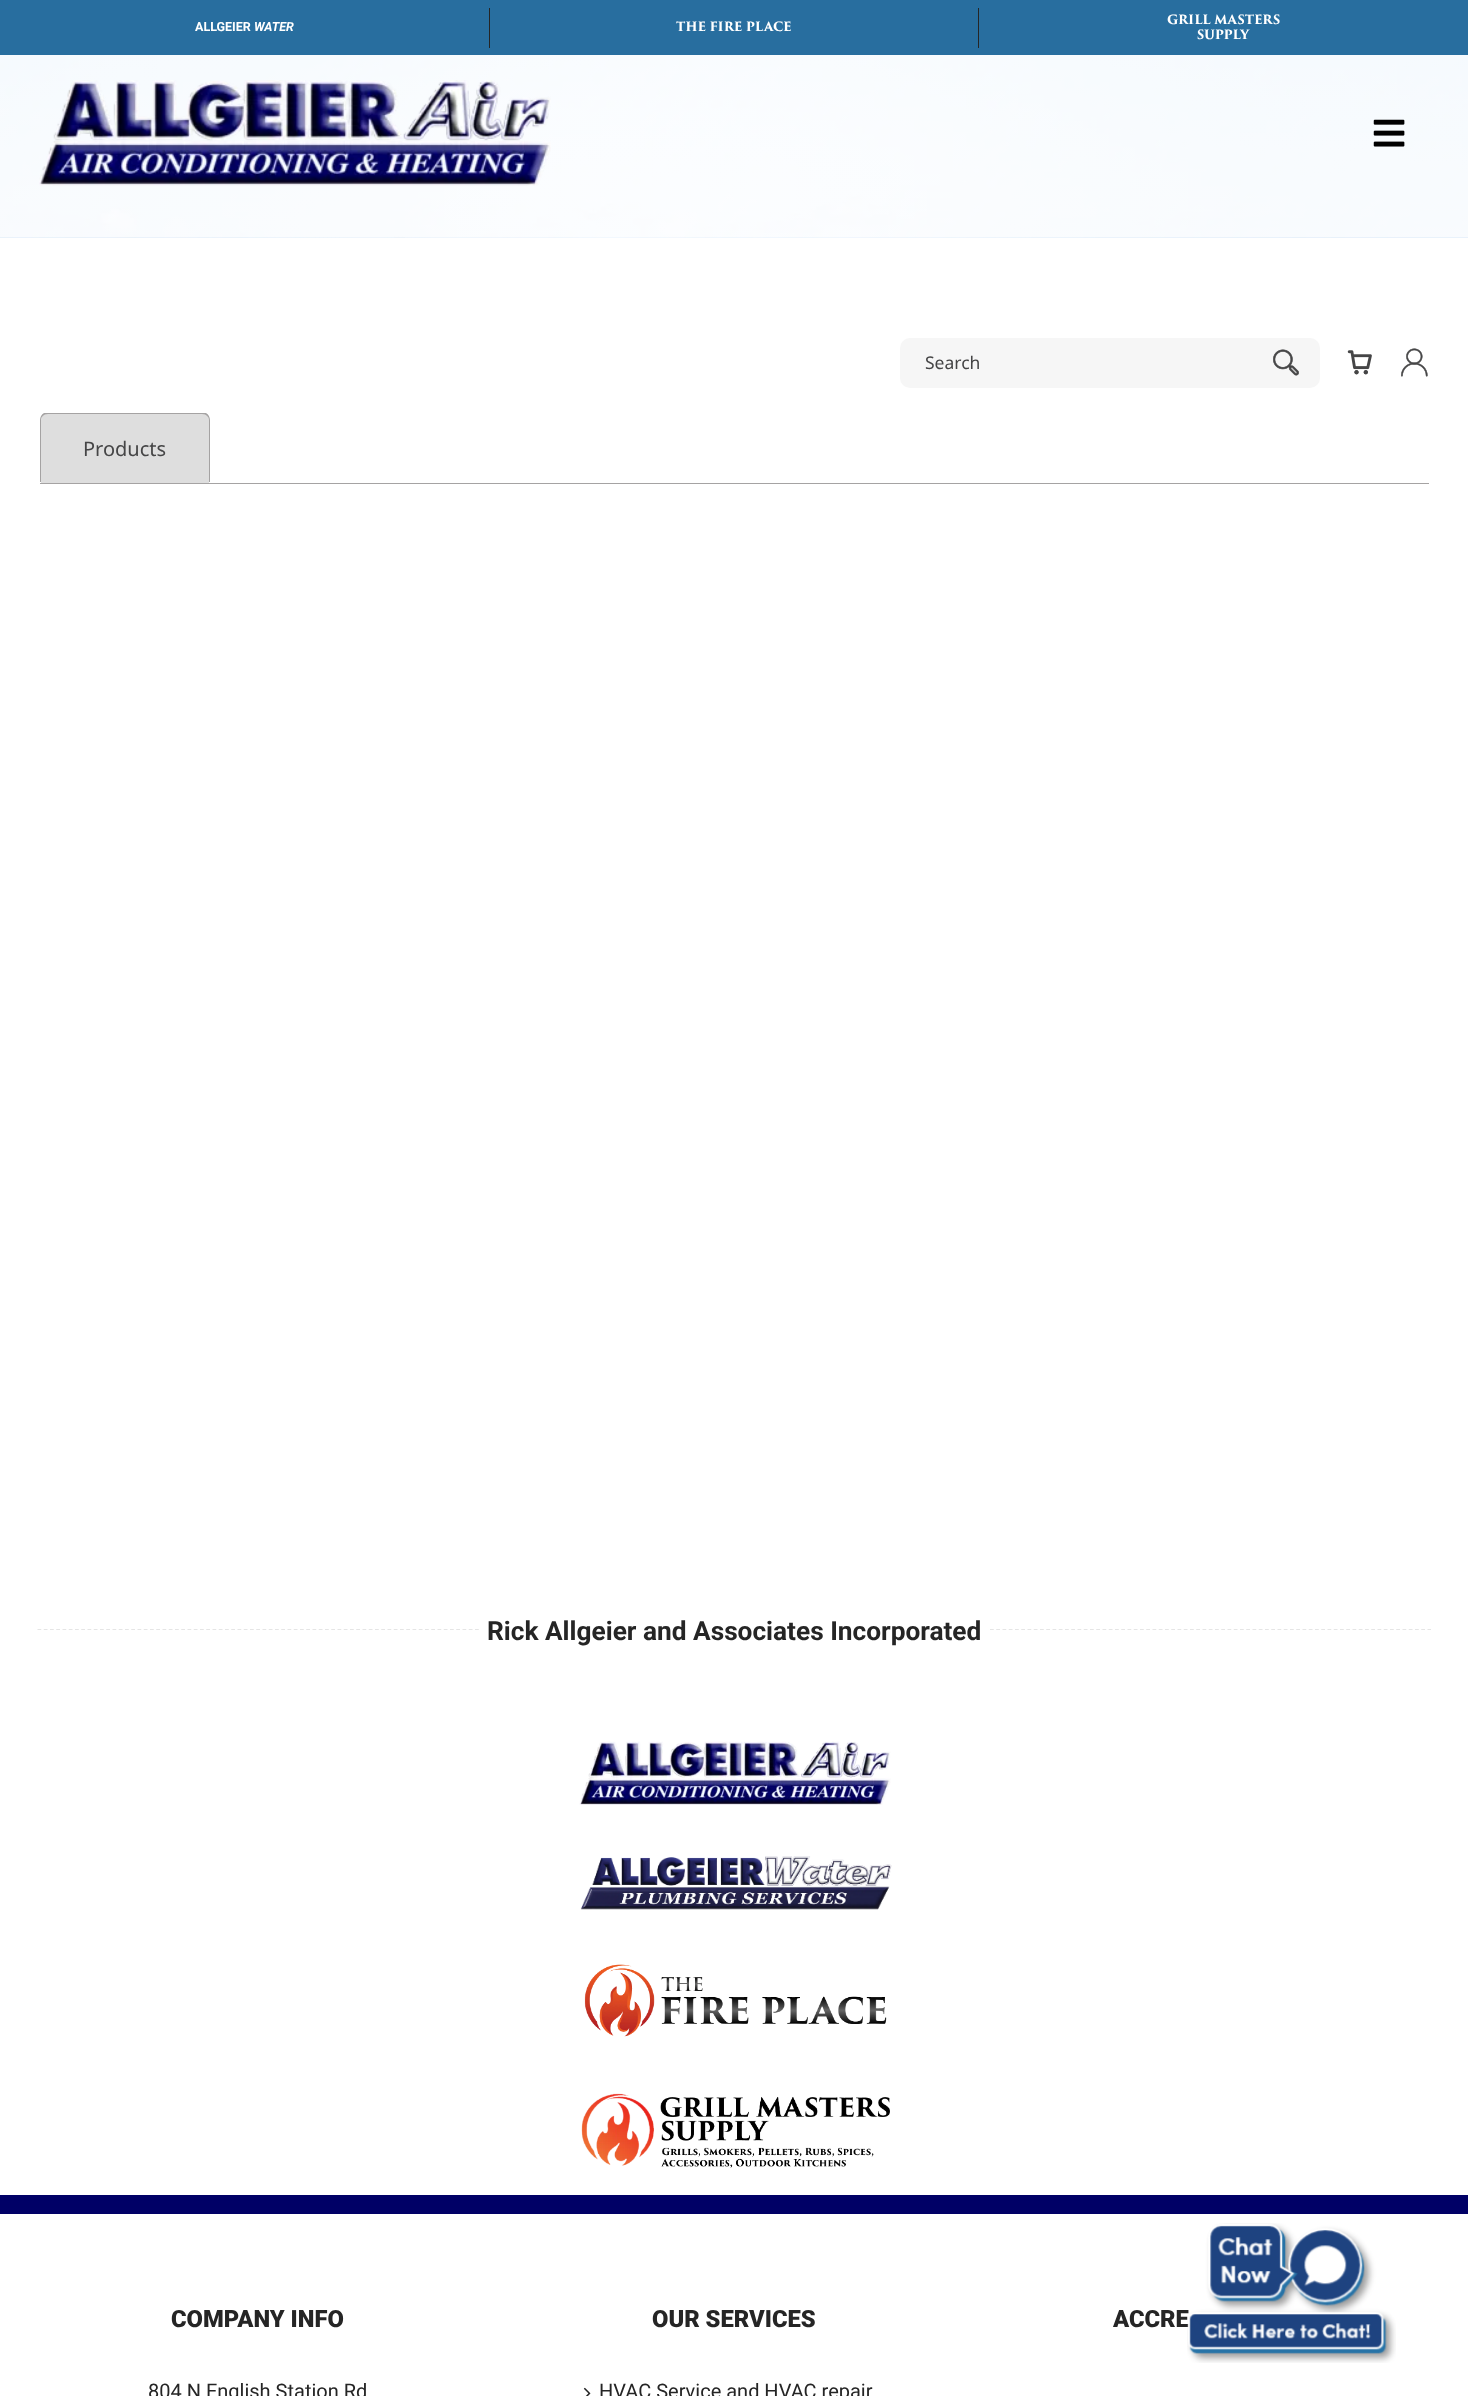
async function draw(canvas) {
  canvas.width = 1468
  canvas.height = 2396
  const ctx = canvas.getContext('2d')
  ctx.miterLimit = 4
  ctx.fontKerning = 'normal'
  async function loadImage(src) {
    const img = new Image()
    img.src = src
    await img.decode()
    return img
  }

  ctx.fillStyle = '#fff'
  ctx.fillRect(0, 0, 1468, 2396)
  ctx.fillStyle = '#286e9f'
  ctx.fillRect(0, 0, 1468, 55)
  ctx.fillStyle = '#252525'
  ctx.fillRect(489, 8, 1, 40)
  ctx.font = 'bold 12.5px Roboto'
  ctx.fillStyle = '#fff'
  ctx.fillText('ALLGEIER', 195, 31)
  ctx.font = 'italic bold 12.5px Roboto'
  ctx.fillText('WATER', 254, 31)
  ctx.fillStyle = '#252525'
  ctx.fillRect(978, 8, 1, 40)
  ctx.font = 'bold 12.5px "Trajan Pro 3"'
  ctx.fillStyle = '#fff'
  ctx.fillText('THE FIRE PLACE', 676, 31)
  ctx.fillText('GRILL MASTERS', 1167, 24)
  ctx.fillText('SUPPLY', 1197, 39)
  ctx.drawImage(await loadImage('image0.png'), 0, 55, 1468, 183)
  ctx.drawImage(await loadImage('image1.png'), 39, 80, 512, 106)
  ctx.drawImage(await loadImage('image2.png'), 1373, 119, 32, 28)
  ctx.fillStyle = '#a5a3a3'
  ctx.fillRect(40, 483, 1389, 1)
  ctx.fillStyle = '#f6f6f6'
  ctx.beginPath()
  ctx.roundRect(900, 338, 420, 50, 10)
  ctx.fill()
  ctx.font = '17.5px Noto Sans'
  ctx.fillStyle = '#454546'
  ctx.fillText('Search', 925, 369)
  ctx.drawImage(await loadImage('image3.png'), 1273, 349, 26, 27)
  ctx.drawImage(await loadImage('image4.png'), 1347, 350, 25, 25)
  ctx.drawImage(await loadImage('image5.png'), 1401, 348, 27, 29)
  ctx.fillStyle = '#dedede'
  ctx.beginPath()
  ctx.roundRect(41, 414, 168, 69, [6, 6, 0, 0])
  ctx.fill()
  ctx.save()
  ctx.beginPath()
  ctx.rect(40, 413, 185, 70)
  ctx.clip()
  ctx.fillStyle = '#a5a3a3'
  ctx.beginPath()
  ctx.moveTo(48, 412)
  ctx.lineTo(202, 412)
  ctx.bezierCurveTo(207, 412, 210, 416, 210, 420)
  ctx.lineTo(210, 482)
  ctx.lineTo(40, 482)
  ctx.lineTo(40, 420)
  ctx.bezierCurveTo(40, 416, 43, 412, 48, 412)
  ctx.closePath()
  ctx.moveTo(48, 414)
  ctx.lineTo(202, 414)
  ctx.bezierCurveTo(206, 414, 209, 417, 209, 420)
  ctx.lineTo(209, 482)
  ctx.lineTo(41, 482)
  ctx.lineTo(41, 420)
  ctx.bezierCurveTo(41, 417, 44, 414, 48, 414)
  ctx.closePath()
  ctx.fill('evenodd')
  ctx.restore()
  ctx.font = '20px Noto Sans'
  ctx.fillStyle = '#454546'
  ctx.fillText('Products', 83, 456)
  ctx.beginPath()
  ctx.moveTo(37.5, 1629.5)
  ctx.lineTo(479, 1629.5)
  ctx.strokeStyle = '#e5e5e5'
  ctx.lineWidth = 1.2
  ctx.setLineDash([3.75, 2.5])
  ctx.stroke()
  ctx.font = 'bold 26.25px Roboto'
  ctx.fillStyle = '#252525'
  ctx.fillText('Rick Allgeier and Associates Incorporated', 487, 1640)
  ctx.beginPath()
  ctx.moveTo(990, 1629.5)
  ctx.lineTo(1431, 1629.5)
  ctx.stroke()
  ctx.drawImage(await loadImage('image6.png'), 579, 1741, 312, 64)
  ctx.drawImage(await loadImage('image7.png'), 580, 1856, 312, 54)
  ctx.drawImage(await loadImage('image8.png'), 584, 1964, 303, 73)
  ctx.drawImage(await loadImage('image9.png'), 581, 2093, 309, 75)
  ctx.fillStyle = '#006'
  ctx.fillRect(0, 2195, 1468, 19)
  ctx.font = '900 23.75px Roboto'
  ctx.fillStyle = '#252525'
  ctx.fillText('COMPANY INFO', 171, 2327)
  ctx.font = '20px Roboto'
  ctx.fillText('804 N English Station Rd', 148, 2398)
  ctx.font = '900 23.75px Roboto'
  ctx.fillText('OUR SERVICES', 652, 2327)
  ctx.drawImage(await loadImage('image10.png'), 583, 2387, 8, 9)
  ctx.font = '20px Roboto'
  ctx.fillText('HVAC Service and HVAC repair', 599, 2398)
  ctx.font = '900 23.75px Roboto'
  ctx.fillText('ACCRE', 1113, 2327)
  ctx.drawImage(await loadImage('image11.png'), 1187, 2223, 209, 140)
}

draw(document.querySelector('canvas'))
